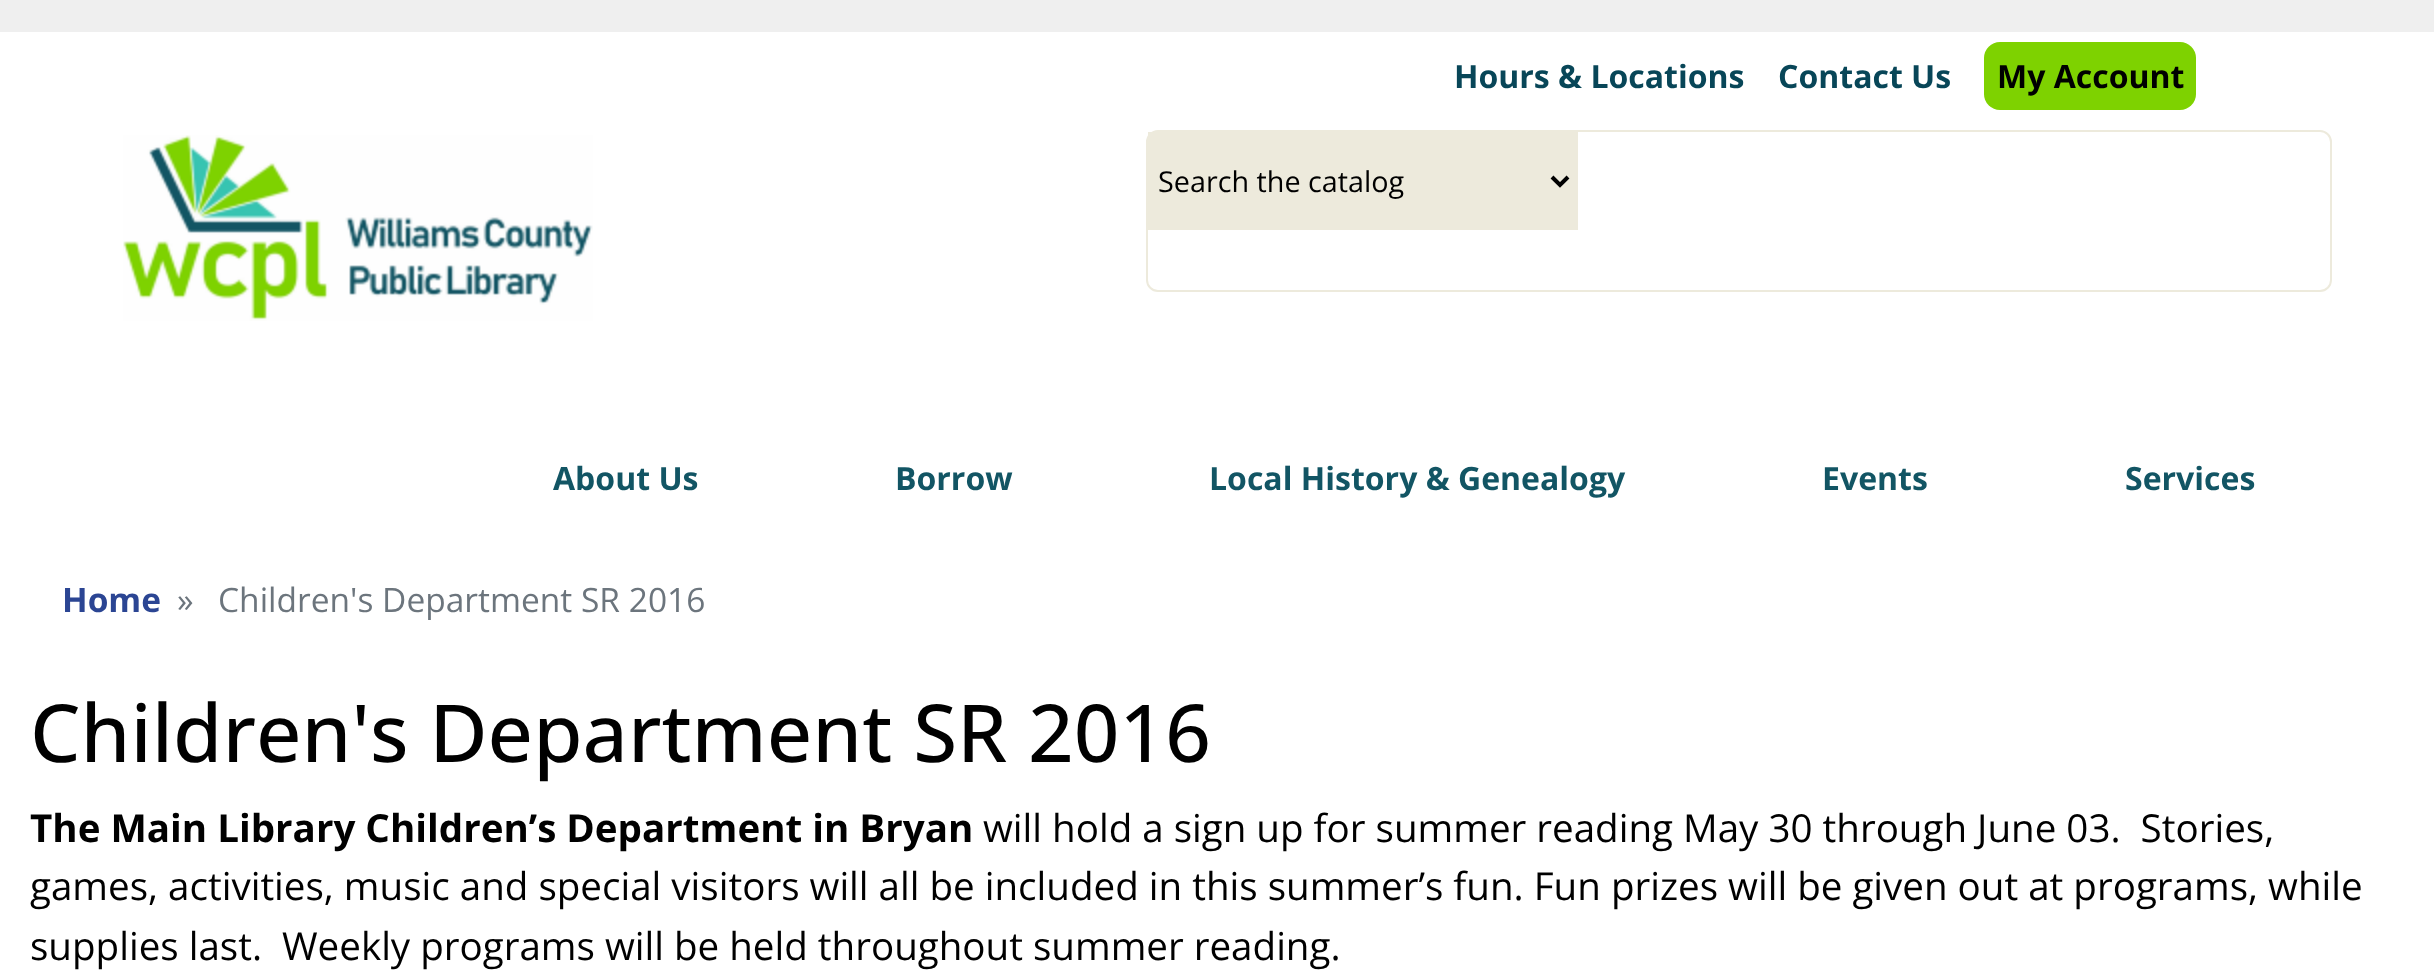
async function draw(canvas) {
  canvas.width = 2434
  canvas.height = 978
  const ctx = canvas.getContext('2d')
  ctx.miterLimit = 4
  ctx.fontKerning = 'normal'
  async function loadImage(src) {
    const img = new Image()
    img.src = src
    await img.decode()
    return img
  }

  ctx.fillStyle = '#fff'
  ctx.fillRect(0, 0, 2434, 978)
  ctx.fillStyle = '#efefef'
  ctx.fillRect(0, 0, 2434, 32)
  ctx.font = 'bold 32px Open Sans'
  ctx.fillStyle = '#084658'
  ctx.fillText('Hours & Locations', 1454, 88)
  ctx.fillText('Contact Us', 1778, 88)
  ctx.fillStyle = '#7ed200'
  ctx.beginPath()
  ctx.roundRect(1984, 42, 212, 68, 16)
  ctx.fill()
  ctx.fillStyle = '#000'
  ctx.fillText('My Account', 1997, 88)
  ctx.drawImage(await loadImage('image0.png'), 123, 135, 470, 186)
  ctx.beginPath()
  ctx.roundRect(1147, 131, 1184, 160, 11)
  ctx.strokeStyle = '#edeadc'
  ctx.lineWidth = 2
  ctx.stroke()
  ctx.fillStyle = '#edeadc'
  ctx.fillRect(1148, 132, 430, 98)
  ctx.beginPath()
  ctx.moveTo(1552, 177)
  ctx.lineTo(1560, 185)
  ctx.lineTo(1568, 177)
  ctx.strokeStyle = '#000'
  ctx.lineWidth = 4
  ctx.stroke()
  ctx.font = '28.75px Open Sans'
  ctx.fillStyle = '#000'
  ctx.fillText('Search the catalog', 1158, 192)
  ctx.font = 'bold 32px Open Sans'
  ctx.fillStyle = '#125564'
  ctx.fillText('About Us', 553, 490)
  ctx.fillText('Borrow', 895, 490)
  ctx.fillText('Local History & Genealogy', 1209, 490)
  ctx.fillText('Events', 1822, 490)
  ctx.fillText('Services', 2125, 490)
  ctx.font = 'bold 33.5px Open Sans'
  ctx.fillStyle = '#2b4593'
  ctx.fillText('Home', 62, 612)
  ctx.font = '33.5px Open Sans'
  ctx.fillStyle = '#6c757d'
  ctx.fillText('»', 177, 612)
  ctx.fillText('Children\'s Department SR 2016', 218, 612)
  ctx.font = '500 80px Open Sans'
  ctx.fillStyle = '#000'
  ctx.fillText('Children\'s Department SR 2016', 30, 762)
  ctx.font = 'bold 38.55px Open Sans'
  ctx.fillText('The Main Library Children’s Department in Bryan', 30, 842)
  ctx.font = '38.55px Open Sans'
  ctx.fillText('will hold a sign up for summer reading May 30 through June 03.  Stories,', 983, 842)
  ctx.fillText('games, activities, music and special visitors will all be included in this summer’s fun. Fun prizes will be given out at programs, while', 30, 900)
  ctx.fillText('supplies last.', 30, 960)
  ctx.fillText('Weekly programs will be held throughout summer reading.', 282, 960)
}

draw(document.querySelector('canvas'))
